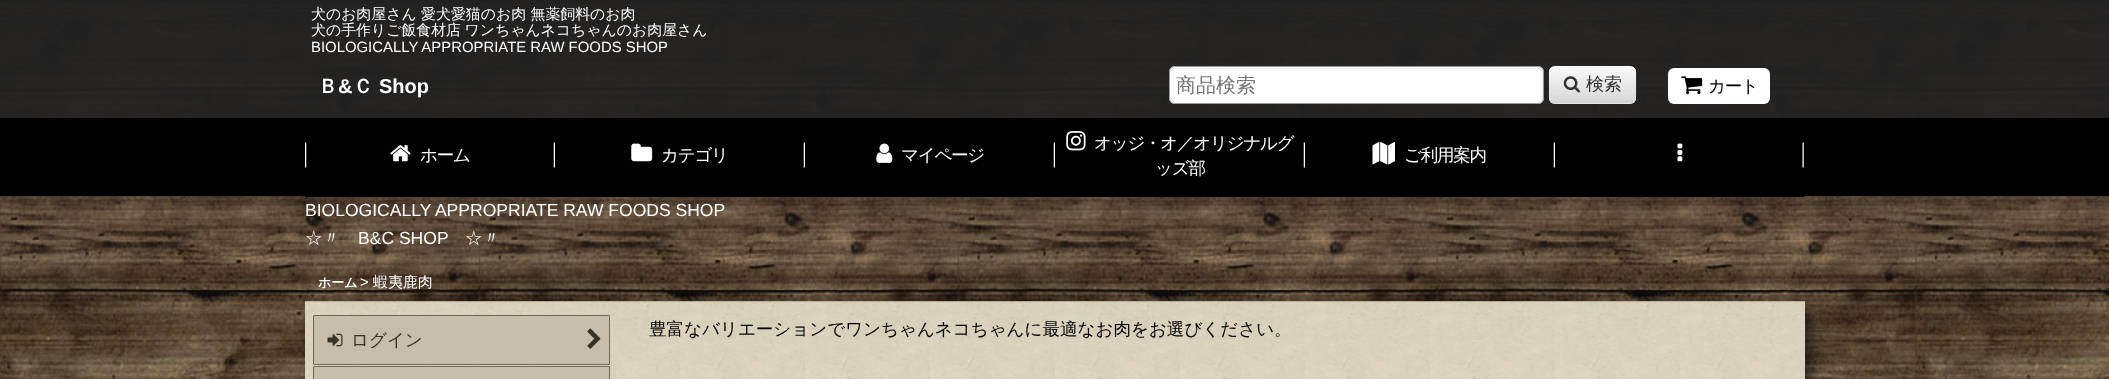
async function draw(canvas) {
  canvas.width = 2109
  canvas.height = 379
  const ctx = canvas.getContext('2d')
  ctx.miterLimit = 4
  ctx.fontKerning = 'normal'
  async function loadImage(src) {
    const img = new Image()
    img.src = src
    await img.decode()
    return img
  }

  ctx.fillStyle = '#fff'
  ctx.fillRect(0, 0, 2109, 379)
  ctx.drawImage(await loadImage('image0.png'), 0, 0, 2109, 379)
  ctx.fillStyle = '#222222eb'
  ctx.fillRect(0, 0, 2109, 118)
  ctx.font = '500 14.9px WenQuanYi Zen Hei'
  ctx.fillStyle = '#fff'
  ctx.fillText('犬のお肉屋さん 愛犬愛猫のお肉 無薬飼料のお肉', 311, 19)
  ctx.wordSpacing = '-1px'
  ctx.fillText('犬の手作りご飯食材店 ワンちゃんネコちゃんのお肉屋さん', 311, 35)
  ctx.wordSpacing = '0px'
  ctx.font = '14.9px Liberation Sans'
  ctx.fillText('BIOLOGICALLY APPROPRIATE RAW FOODS SHOP', 311, 52)
  ctx.beginPath()
  ctx.roundRect(1169, 66, 375, 38, 6)
  ctx.fill()
  ctx.fillStyle = '#ececec'
  ctx.beginPath()
  ctx.moveTo(1175, 69)
  ctx.lineTo(1538, 69)
  ctx.bezierCurveTo(1540, 69, 1542, 71, 1542, 74)
  ctx.lineTo(1542, 99)
  ctx.lineTo(1541, 102)
  ctx.bezierCurveTo(1542, 101, 1543, 99, 1543, 98)
  ctx.lineTo(1543, 73)
  ctx.bezierCurveTo(1543, 70, 1541, 68, 1538, 68)
  ctx.lineTo(1175, 68)
  ctx.bezierCurveTo(1172, 68, 1170, 70, 1170, 73)
  ctx.lineTo(1170, 74)
  ctx.bezierCurveTo(1170, 71, 1172, 69, 1175, 69)
  ctx.closePath()
  ctx.fill()
  ctx.beginPath()
  ctx.roundRect(1169.5, 66.5, 374, 37, 5.5)
  ctx.strokeStyle = '#999'
  ctx.stroke()
  ctx.font = '500 20px WenQuanYi Zen Hei'
  ctx.fillStyle = '#757575'
  ctx.fillText('商品検索', 1176, 92)
  ctx.fillStyle = '#f9f9f9'
  ctx.beginPath()
  ctx.roundRect(1549, 66, 87, 38, 6)
  ctx.fill()
  ctx.drawImage(await loadImage('image1.png'), 1548, 66, 89, 38)
  ctx.fillStyle = '#ffffff33'
  ctx.beginPath()
  ctx.moveTo(1555, 68)
  ctx.lineTo(1630, 68)
  ctx.bezierCurveTo(1633, 68, 1636, 70, 1636, 74)
  ctx.bezierCurveTo(1636, 63, 1626, 66, 1618, 66)
  ctx.lineTo(1568, 66)
  ctx.bezierCurveTo(1559, 66, 1549, 63, 1549, 74)
  ctx.bezierCurveTo(1549, 70, 1552, 68, 1555, 68)
  ctx.closePath()
  ctx.fill()
  ctx.drawImage(await loadImage('image2.png'), 1563, 76, 17, 17)
  ctx.font = '500 18px WenQuanYi Zen Hei'
  ctx.fillStyle = '#333'
  ctx.fillText('検索', 1586, 90)
  ctx.font = 'bold 20px WenQuanYi Zen Hei'
  ctx.fillStyle = '#fff'
  ctx.fillText('Ｂ', 318, 93)
  ctx.font = 'bold 20px Liberation Sans'
  ctx.fillText('&', 338, 93)
  ctx.font = 'bold 20px WenQuanYi Zen Hei'
  ctx.fillText('Ｃ', 353, 93)
  ctx.font = 'bold 20px Liberation Sans'
  ctx.fillText('Shop', 379, 93)
  ctx.beginPath()
  ctx.roundRect(1668, 68, 102, 36, 6)
  ctx.fill()
  ctx.drawImage(await loadImage('image3.png'), 1681, 76, 22, 19)
  ctx.letterSpacing = '-1.25px'
  ctx.font = '500 17.55px WenQuanYi Zen Hei'
  ctx.fillStyle = '#000'
  ctx.fillText('カート', 1708, 92)
  ctx.fillRect(0, 118, 2109, 78)
  ctx.drawImage(await loadImage('image4.png'), 305, 142, 250, 26)
  ctx.fillRect(305, 196, 1499, 1)
  ctx.drawImage(await loadImage('image5.png'), 390, 145, 21, 17)
  ctx.fillStyle = '#fff'
  ctx.fillText('ホーム', 420, 161)
  ctx.drawImage(await loadImage('image6.png'), 803, 142, 2, 26)
  ctx.drawImage(await loadImage('image7.png'), 631, 143, 22, 19)
  ctx.fillText('カテゴリ', 661, 161)
  ctx.drawImage(await loadImage('image6.png'), 1053, 142, 2, 26)
  ctx.drawImage(await loadImage('image8.png'), 876, 143, 17, 20)
  ctx.fillText('マイページ', 901, 161)
  ctx.drawImage(await loadImage('image6.png'), 1303, 142, 2, 26)
  ctx.drawImage(await loadImage('image9.png'), 1066, 131, 20, 20)
  ctx.fillText('オッジ・オ／オリジナルグ', 1094, 149)
  ctx.fillText('ッズ部', 1155, 174)
  ctx.drawImage(await loadImage('image6.png'), 1553, 142, 2, 26)
  ctx.drawImage(await loadImage('image10.png'), 1372, 142, 23, 23)
  ctx.fillText('ご利用案内', 1404, 161)
  ctx.drawImage(await loadImage('image11.png'), 1802, 142, 2, 26)
  ctx.drawImage(await loadImage('image12.png'), 1677, 143, 6, 19)
  ctx.letterSpacing = '0px'
  ctx.font = '17.55px Liberation Sans'
  ctx.fillText('BIOLOGICALLY APPROPRIATE RAW FOODS SHOP', 305, 216)
  ctx.font = '500 17.55px WenQuanYi Zen Hei'
  ctx.fillText('☆〃', 305, 244)
  ctx.font = '17.55px Liberation Sans'
  ctx.fillText('B&C SHOP', 358, 244)
  ctx.font = '500 17.55px WenQuanYi Zen Hei'
  ctx.fillText('☆〃', 465, 244)
  ctx.font = 'bold 13px WenQuanYi Zen Hei'
  ctx.fillText('ホーム', 318, 287)
  ctx.font = '14.9px Liberation Sans'
  ctx.fillText('>', 360, 287)
  ctx.fillStyle = '#00000080'
  ctx.filter = 'blur(6px)'
  ctx.beginPath()
  ctx.rect(311, 308, 1500, 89)
  ctx.fill()
  ctx.filter = 'none'
  ctx.font = '500 14.9px WenQuanYi Zen Hei'
  ctx.fillStyle = '#fff'
  ctx.fillText('蝦夷鹿肉', 373, 287)
  ctx.drawImage(await loadImage('image13.png'), 305, 301, 1500, 78)
  ctx.fillStyle = '#c5beaa'
  ctx.beginPath()
  ctx.rect(313.5, 315.5, 296, 49)
  ctx.fill()
  ctx.strokeStyle = '#766652'
  ctx.stroke()
  ctx.drawImage(await loadImage('image14.png'), 327, 333, 16, 14)
  ctx.font = '500 17.55px WenQuanYi Zen Hei'
  ctx.fillStyle = '#353526'
  ctx.fillText('ログイン', 351, 346)
  ctx.drawImage(await loadImage('image15.png'), 587, 328, 14, 21)
  ctx.fillStyle = '#c5beaa'
  ctx.beginPath()
  ctx.rect(313.5, 366.5, 296, 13)
  ctx.fill()
  ctx.stroke()
  ctx.fillStyle = '#000'
  ctx.fillText('豊富なバリエーションでワンちゃんネコちゃんに最適なお肉をお選びください。', 649, 335)
}

draw(document.querySelector('canvas'))
